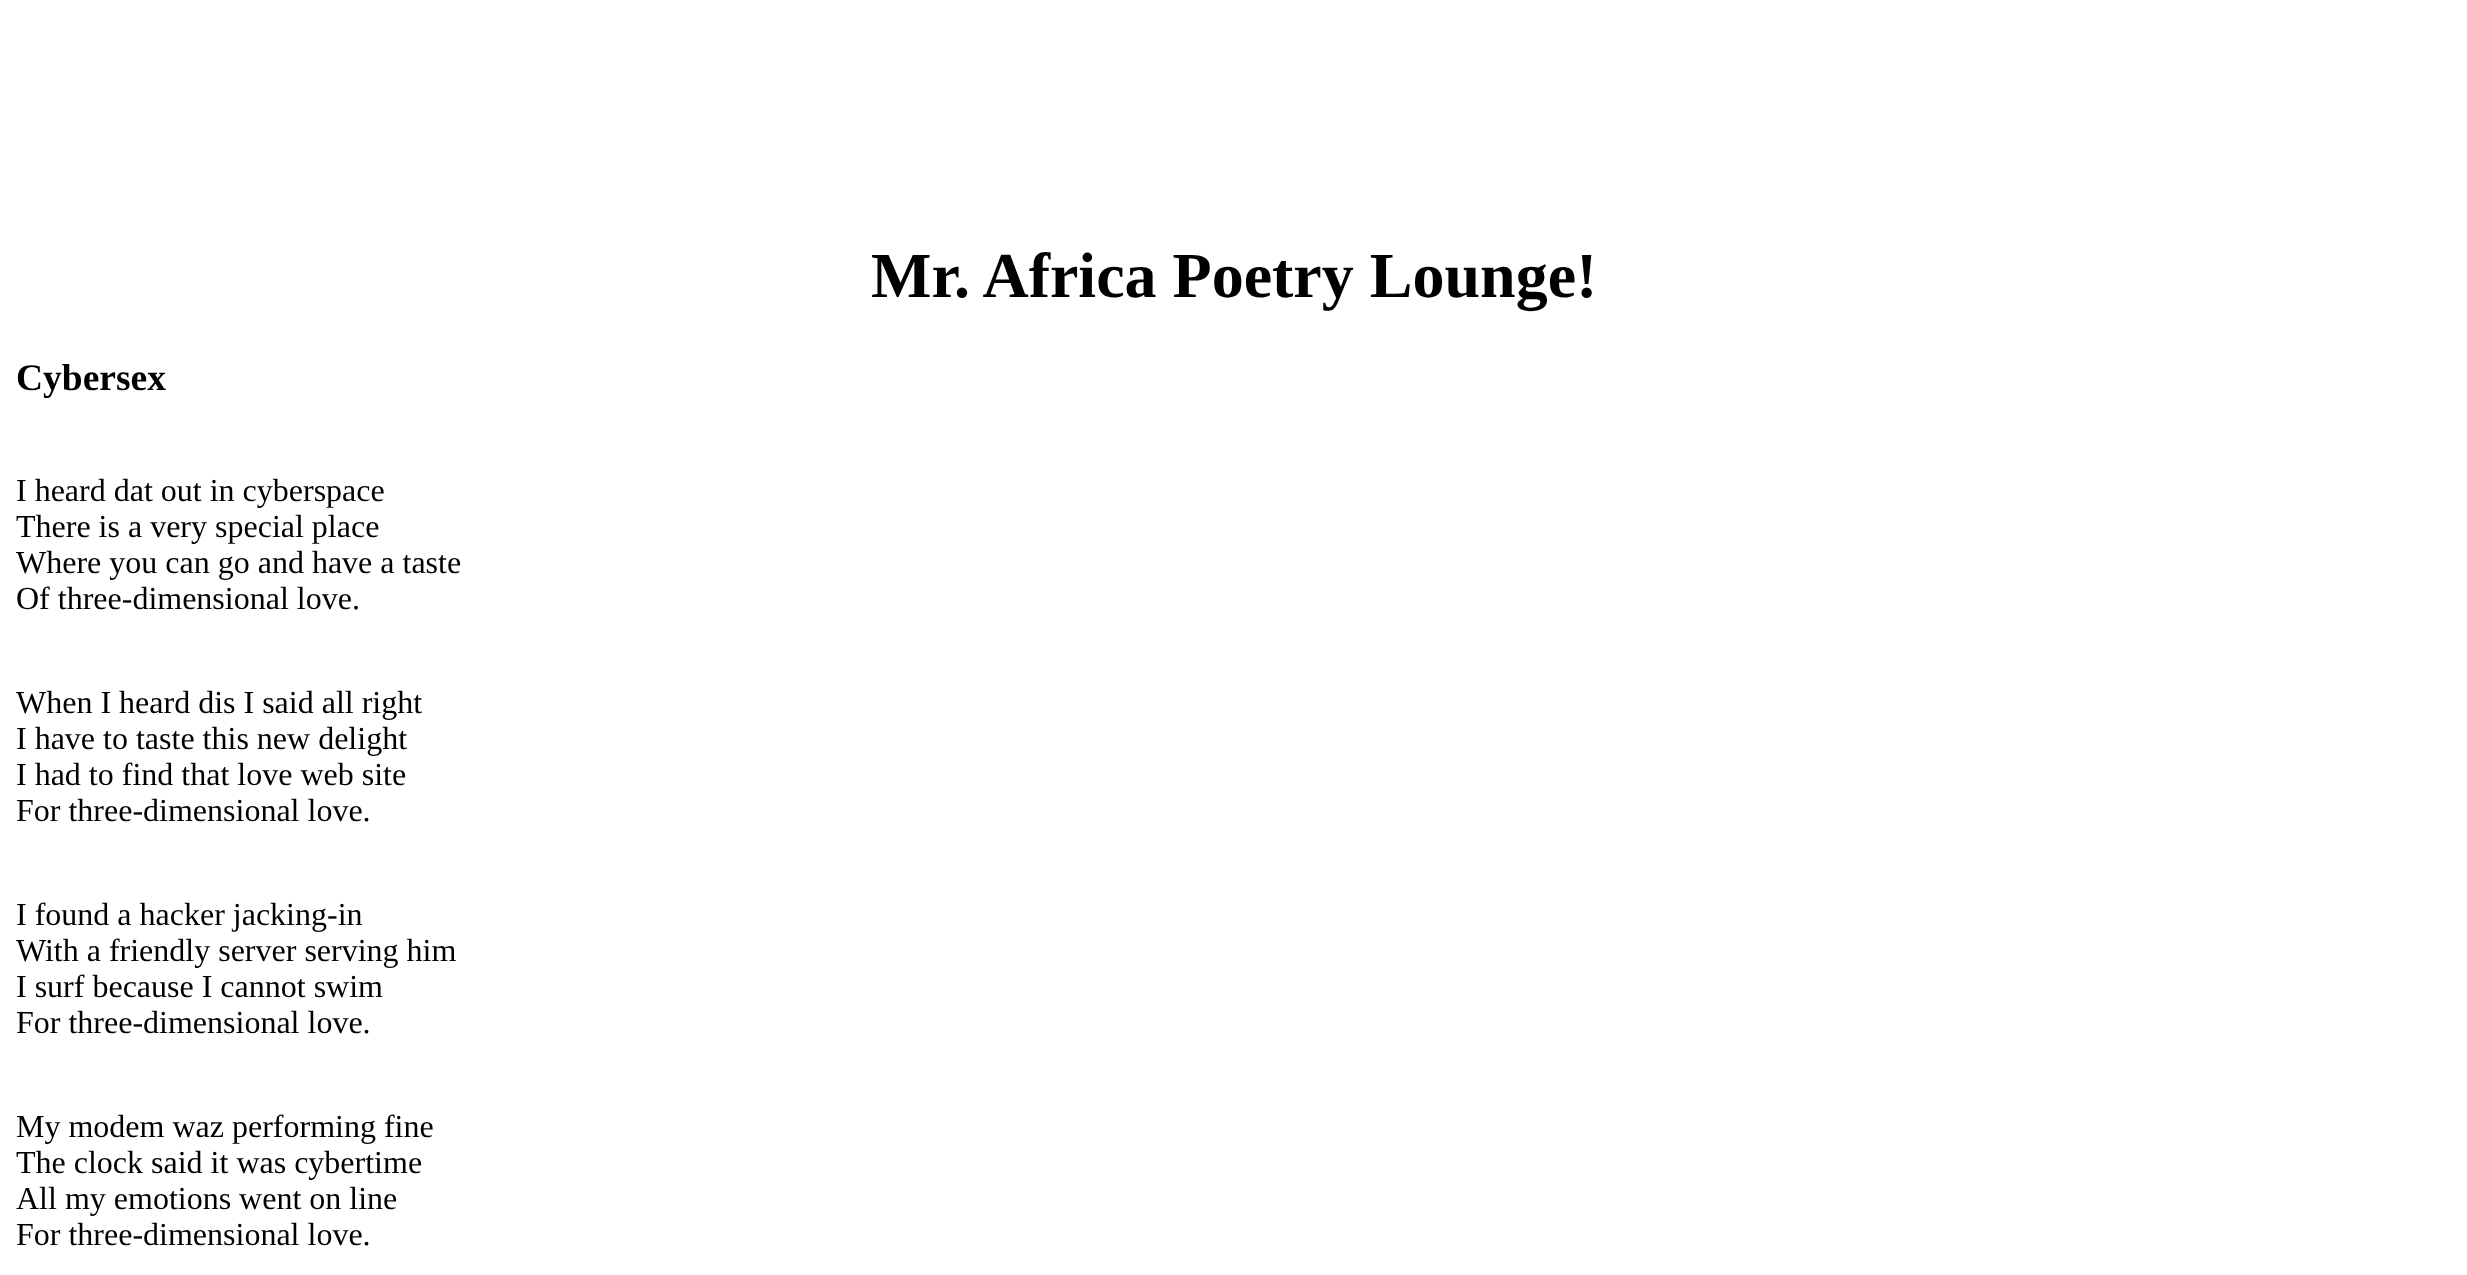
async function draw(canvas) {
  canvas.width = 2467
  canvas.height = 1275
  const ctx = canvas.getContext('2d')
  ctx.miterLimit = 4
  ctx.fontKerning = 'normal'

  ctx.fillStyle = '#fff'
  ctx.fillRect(0, 0, 2467, 1275)
  ctx.font = 'bold 64px Liberation Serif'
  ctx.fillStyle = '#000'
  ctx.fillText('Mr. Africa Poetry Lounge!', 871, 297)
  ctx.font = 'bold 37.5px Liberation Serif'
  ctx.fillText('Cybersex', 16, 390)
  ctx.font = '32px Liberation Serif'
  ctx.fillText('I heard dat out in cyberspace', 16, 501)
  ctx.fillText('There is a very special place', 16, 537)
  ctx.fillText('Where you can go and have a taste', 16, 573)
  ctx.fillText('Of three-dimensional love.', 16, 609)
  ctx.fillText('When I heard dis I said all right', 16, 713)
  ctx.fillText('I have to taste this new delight', 16, 749)
  ctx.fillText('I had to find that love web site', 16, 785)
  ctx.fillText('For three-dimensional love.', 16, 821)
  ctx.fillText('I found a hacker jacking-in', 16, 925)
  ctx.fillText('With a friendly server serving him', 16, 961)
  ctx.fillText('I surf because I cannot swim', 16, 997)
  ctx.fillText('For three-dimensional love.', 16, 1033)
  ctx.fillText('My modem waz performing fine', 16, 1137)
  ctx.fillText('The clock said it was cybertime', 16, 1173)
  ctx.fillText('All my emotions went on line', 16, 1209)
  ctx.fillText('For three-dimensional love.', 16, 1245)
}

draw(document.querySelector('canvas'))
